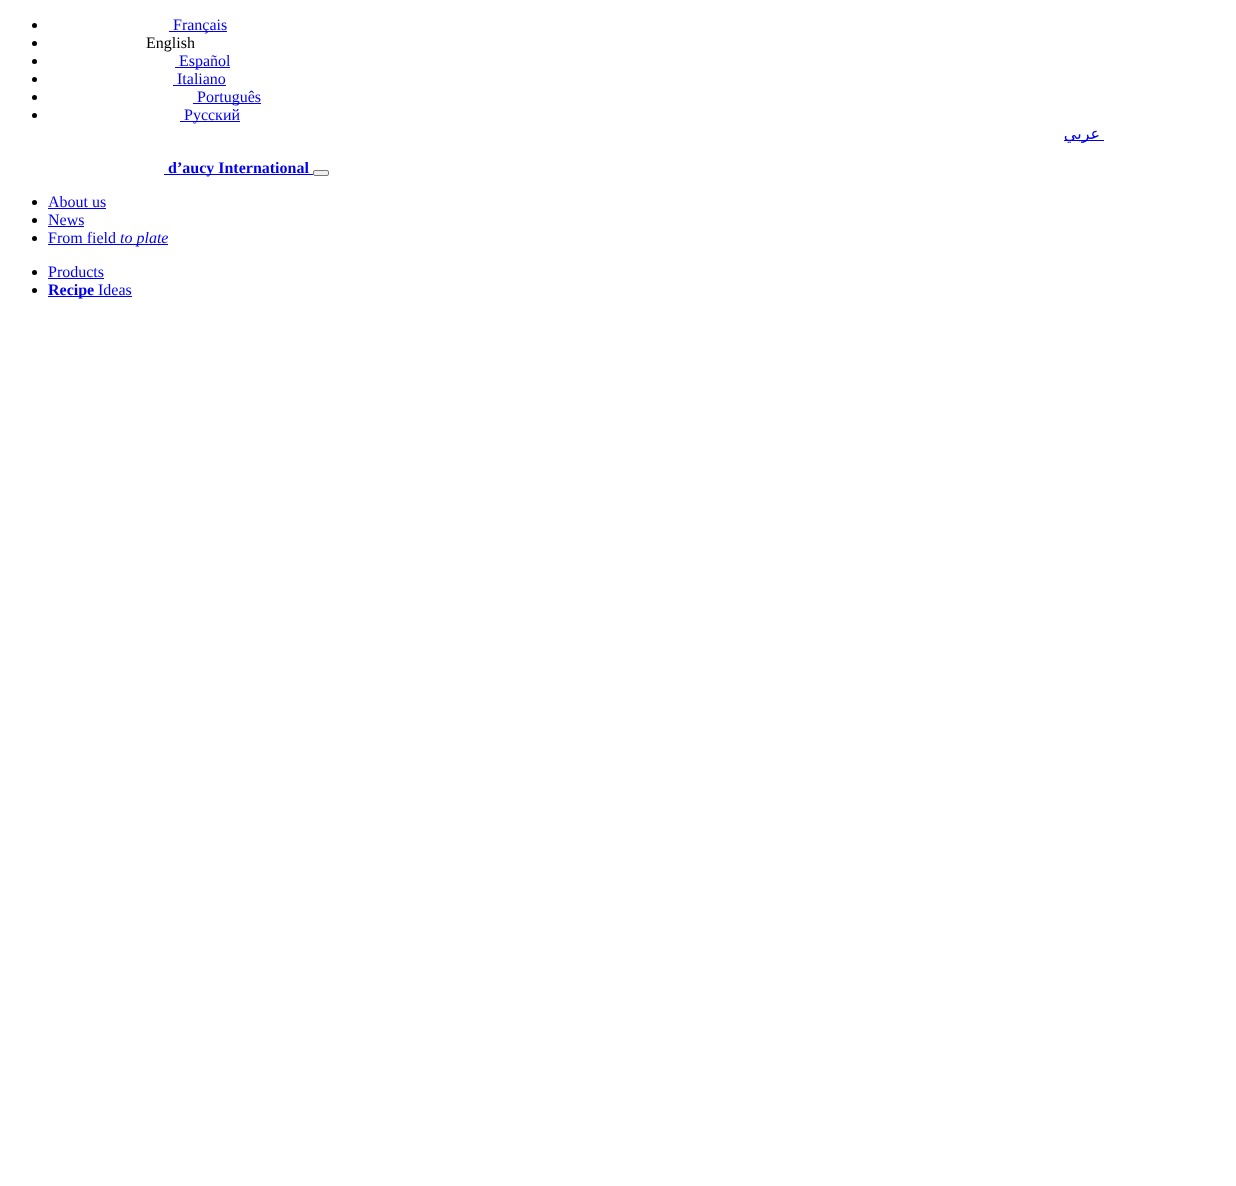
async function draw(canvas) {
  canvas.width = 1236
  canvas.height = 1186
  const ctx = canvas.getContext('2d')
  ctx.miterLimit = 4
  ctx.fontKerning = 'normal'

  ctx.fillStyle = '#fff'
  ctx.fillRect(0, 0, 1236, 1186)
  ctx.fillStyle = '#000'
  ctx.beginPath()
  ctx.arc(34.5, 25.5, 2.5, 0, 2 * Math.PI)
  ctx.fill()
  ctx.fillStyle = '#00e'
  ctx.fillRect(169, 31, 58, 1)
  ctx.font = '16px Liberation Serif'
  ctx.fillText('Français', 173, 30)
  ctx.fillStyle = '#000'
  ctx.beginPath()
  ctx.arc(34.5, 43.5, 2.5, 0, 2 * Math.PI)
  ctx.fill()
  ctx.fillText('English', 146, 48)
  ctx.beginPath()
  ctx.arc(34.5, 61.5, 2.5, 0, 2 * Math.PI)
  ctx.fill()
  ctx.fillStyle = '#00e'
  ctx.fillRect(175, 67, 55, 1)
  ctx.fillText('Español', 179, 66)
  ctx.fillStyle = '#000'
  ctx.beginPath()
  ctx.arc(34.5, 79.5, 2.5, 0, 2 * Math.PI)
  ctx.fill()
  ctx.fillStyle = '#00e'
  ctx.fillText('Italiano', 177, 84)
  ctx.fillRect(173, 85, 53, 1)
  ctx.fillStyle = '#000'
  ctx.beginPath()
  ctx.arc(34.5, 97.5, 2.5, 0, 2 * Math.PI)
  ctx.fill()
  ctx.fillStyle = '#00e'
  ctx.fillRect(193, 103, 68, 1)
  ctx.fillText('Português', 197, 102)
  ctx.fillStyle = '#000'
  ctx.beginPath()
  ctx.arc(34.5, 115.5, 2.5, 0, 2 * Math.PI)
  ctx.fill()
  ctx.fillStyle = '#00e'
  ctx.fillRect(180, 121, 60, 1)
  ctx.fillText('Pусский', 184, 120)
  ctx.fillRect(1064, 140, 40, 1)
  ctx.direction = 'rtl'
  ctx.font = '16px DejaVu Sans'
  ctx.fillText('عربي', 1100, 139)
  ctx.fillRect(164, 174, 149, 1)
  ctx.direction = 'ltr'
  ctx.font = 'bold 16px Liberation Serif'
  ctx.fillText('d’aucy International', 168, 173)
  ctx.fillStyle = '#efefef'
  ctx.beginPath()
  ctx.roundRect(313.5, 170.5, 15, 5, 1.5)
  ctx.fill()
  ctx.strokeStyle = '#767676'
  ctx.stroke()
  ctx.fillStyle = '#000'
  ctx.beginPath()
  ctx.arc(34.5, 202.5, 2.5, 0, 2 * Math.PI)
  ctx.fill()
  ctx.font = '16px Liberation Serif'
  ctx.fillStyle = '#00e'
  ctx.fillText('About us', 48, 207)
  ctx.fillRect(48, 208, 58, 1)
  ctx.fillStyle = '#000'
  ctx.beginPath()
  ctx.arc(34.5, 220.5, 2.5, 0, 2 * Math.PI)
  ctx.fill()
  ctx.fillStyle = '#00e'
  ctx.fillText('News', 48, 225)
  ctx.fillRect(48, 226, 36, 1)
  ctx.fillStyle = '#000'
  ctx.beginPath()
  ctx.arc(34.5, 238.5, 2.5, 0, 2 * Math.PI)
  ctx.fill()
  ctx.fillStyle = '#00e'
  ctx.fillText('From field', 48, 243)
  ctx.fillRect(48, 244, 120, 1)
  ctx.font = 'italic 16px Liberation Serif'
  ctx.fillText('to plate', 120, 243)
  ctx.fillStyle = '#000'
  ctx.beginPath()
  ctx.arc(34.5, 272.5, 2.5, 0, 2 * Math.PI)
  ctx.fill()
  ctx.font = '16px Liberation Serif'
  ctx.fillStyle = '#00e'
  ctx.fillText('Products', 48, 277)
  ctx.fillRect(48, 278, 56, 1)
  ctx.fillStyle = '#000'
  ctx.beginPath()
  ctx.arc(34.5, 290.5, 2.5, 0, 2 * Math.PI)
  ctx.fill()
  ctx.fillStyle = '#00e'
  ctx.fillRect(48, 296, 84, 1)
  ctx.font = 'bold 16px Liberation Serif'
  ctx.fillText('Recipe', 48, 295)
  ctx.font = '16px Liberation Serif'
  ctx.fillText('Ideas', 98, 295)
}

draw(document.querySelector('canvas'))
